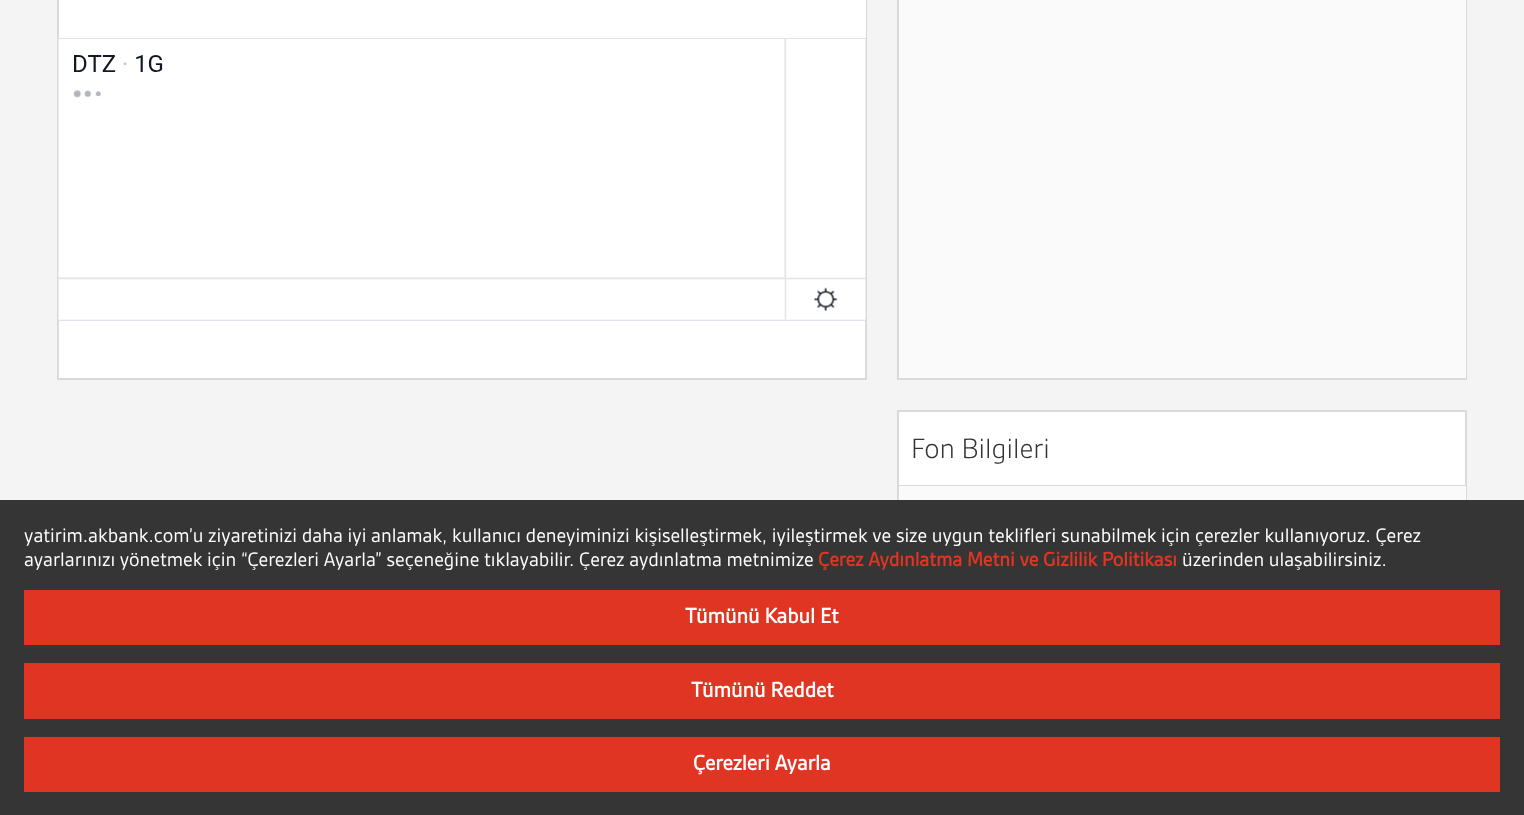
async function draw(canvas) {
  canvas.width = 1524
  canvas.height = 815
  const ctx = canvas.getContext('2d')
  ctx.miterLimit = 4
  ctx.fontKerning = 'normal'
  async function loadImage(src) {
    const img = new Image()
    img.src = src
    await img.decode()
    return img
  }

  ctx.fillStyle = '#f4f4f4'
  ctx.fillRect(0, 0, 1524, 815)
  ctx.strokeStyle = '#d9d9d9'
  ctx.lineWidth = 2
  ctx.strokeRect(58, -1, 808, 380)
  ctx.drawImage(await loadImage('image0.png'), 58, 0, 808, 378)
  ctx.strokeRect(898, -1, 568, 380)
  ctx.fillStyle = '#fafafa'
  ctx.fillRect(899, 0, 567, 378)
  ctx.fillStyle = '#fff'
  ctx.fillRect(899, 412, 566, 73)
  ctx.strokeRect(898, 411, 568, 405)
  ctx.fillStyle = '#d9d9d9'
  ctx.fillRect(899, 485, 567, 1)
  ctx.font = '300 30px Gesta'
  ctx.fillStyle = '#333'
  ctx.fillText('Fon Bilgileri', 911, 458)
  ctx.fillStyle = '#fafafa'
  ctx.fillRect(899, 486, 567, 14)
  ctx.fillStyle = '#353535'
  ctx.fillRect(0, 500, 1524, 315)
  ctx.font = '21px Gesta'
  ctx.fillStyle = '#fff'
  ctx.fillText('yatirim.akbank.com’u ziyaretinizi daha iyi anlamak, kullanıcı deneyiminizi kişiselleştirmek, iyileştirmek ve size uygun teklifleri sunabilmek için çerezler kullanıyoruz. Çerez', 24, 542)
  ctx.fillText('ayarlarınızı yönetmek için “Çerezleri Ayarla” seçeneğine tıklayabilir. Çerez aydınlatma metnimize', 24, 566)
  ctx.font = 'bold 21px Gesta'
  ctx.fillStyle = '#e03523'
  ctx.fillText('Çerez Aydınlatma Metni ve Gizlilik Politikası', 818, 566)
  ctx.font = '21px Gesta'
  ctx.fillStyle = '#fff'
  ctx.fillText('üzerinden ulaşabilirsiniz.', 1182, 566)
  ctx.fillStyle = '#e03523'
  ctx.fillRect(24, 590, 1476, 55)
  ctx.font = 'bold 22.5px Gesta'
  ctx.fillStyle = '#fff'
  ctx.fillText('Tümünü Kabul Et', 685, 623)
  ctx.fillStyle = '#e03523'
  ctx.fillRect(24, 663, 1476, 56)
  ctx.fillStyle = '#fff'
  ctx.fillText('Tümünü Reddet', 691, 697)
  ctx.fillStyle = '#e03523'
  ctx.fillRect(24, 737, 1476, 55)
  ctx.fillStyle = '#fff'
  ctx.fillText('Çerezleri Ayarla', 693, 770)
}

draw(document.querySelector('canvas'))
